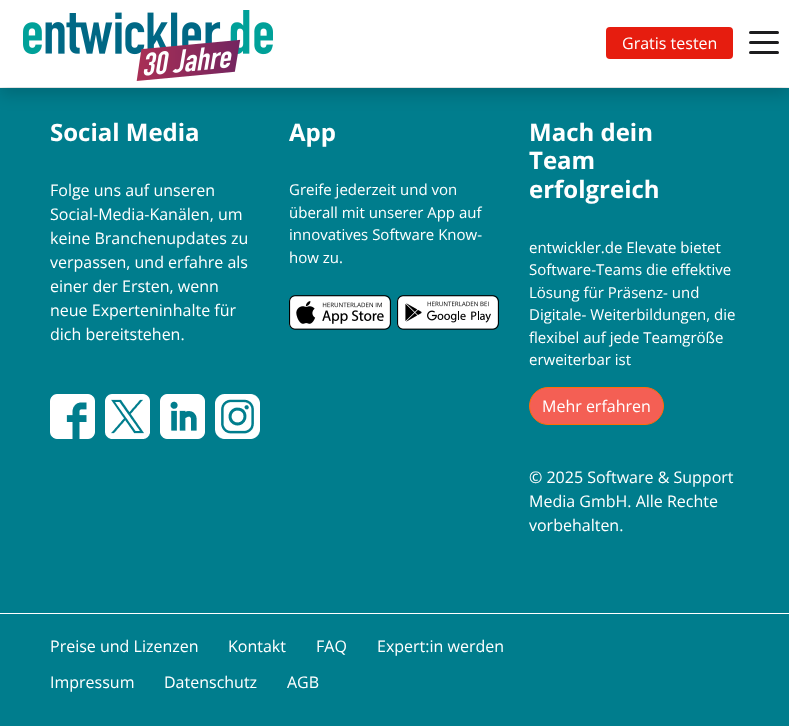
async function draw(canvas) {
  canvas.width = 789
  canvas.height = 726
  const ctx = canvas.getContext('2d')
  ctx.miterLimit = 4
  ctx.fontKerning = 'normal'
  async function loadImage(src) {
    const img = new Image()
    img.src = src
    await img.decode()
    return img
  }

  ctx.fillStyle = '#fff'
  ctx.fillRect(0, 0, 789, 726)
  ctx.fillStyle = '#007d8d'
  ctx.fillRect(0, 88, 789, 525)
  ctx.fillStyle = '#00000026'
  ctx.filter = 'blur(8px)'
  ctx.beginPath()
  ctx.rect(0, 8, 789, 87)
  ctx.fill()
  ctx.filter = 'none'
  ctx.fillStyle = '#fff'
  ctx.fillRect(0, 0, 789, 87)
  ctx.drawImage(await loadImage('image0.png'), 23, 10, 250, 71)
  ctx.fillStyle = '#e61d0f'
  ctx.beginPath()
  ctx.roundRect(606, 27, 127, 32, 4)
  ctx.fill()
  ctx.font = '16px Open Sans'
  ctx.fillStyle = '#fff'
  ctx.fillText('Gratis testen', 622, 49)
  ctx.fillStyle = '#1c1c1e'
  ctx.beginPath()
  ctx.roundRect(749, 31, 30, 3, 1.5)
  ctx.fill()
  ctx.beginPath()
  ctx.roundRect(749, 41, 30, 3, 1.5)
  ctx.fill()
  ctx.beginPath()
  ctx.roundRect(749, 51, 30, 3, 1.5)
  ctx.fill()
  ctx.font = 'bold 24px Open Sans'
  ctx.fillStyle = '#fff'
  ctx.fillText('Social Media', 50, 141)
  ctx.font = '16px Open Sans'
  ctx.fillText('Folge uns auf unseren', 50, 196)
  ctx.fillText('Social-Media-Kanälen, um', 50, 220)
  ctx.fillText('keine Branchenupdates zu', 50, 244)
  ctx.fillText('verpassen, und erfahre als', 50, 268)
  ctx.fillText('einer der Ersten, wenn', 50, 292)
  ctx.fillText('neue Experteninhalte für', 50, 316)
  ctx.fillText('dich bereitstehen.', 50, 340)
  ctx.drawImage(await loadImage('image1.png'), 50, 394, 45, 45)
  ctx.drawImage(await loadImage('image2.png'), 105, 394, 45, 45)
  ctx.drawImage(await loadImage('image3.png'), 160, 394, 45, 45)
  ctx.drawImage(await loadImage('image4.png'), 215, 394, 45, 45)
  ctx.font = 'bold 24px Open Sans'
  ctx.fillText('App', 289, 141)
  ctx.font = '15px Open Sans'
  ctx.fillText('Greife jederzeit und von', 289, 195)
  ctx.fillText('überall mit unserer App auf', 289, 218)
  ctx.fillText('innovatives Software Know-', 289, 240)
  ctx.fillText('how zu.', 289, 263)
  ctx.drawImage(await loadImage('image5.png'), 289, 295, 102, 35)
  ctx.drawImage(await loadImage('image6.png'), 397, 295, 102, 35)
  ctx.font = 'bold 24px Open Sans'
  ctx.fillText('Mach dein', 529, 141)
  ctx.fillText('Team', 529, 169)
  ctx.fillText('erfolgreich', 529, 198)
  ctx.font = '15px Open Sans'
  ctx.fillText('entwickler.de Elevate bietet', 529, 253)
  ctx.fillText('Software-Teams die effektive', 529, 275)
  ctx.fillText('Lösung für Präsenz- und', 529, 298)
  ctx.fillText('Digitale- Weiterbildungen, die', 529, 320)
  ctx.fillText('flexibel auf jede Teamgröße', 529, 343)
  ctx.fillText('erweiterbar ist', 529, 365)
  ctx.fillStyle = '#f45f54'
  ctx.beginPath()
  ctx.roundRect(529.5, 387.5, 134, 37, 18.5)
  ctx.fill()
  ctx.strokeStyle = '#ff6d05'
  ctx.stroke()
  ctx.font = '16px Open Sans'
  ctx.fillStyle = '#fff'
  ctx.fillText('Mehr erfahren', 542, 412)
  ctx.fillText('© 2025 Software & Support', 529, 483)
  ctx.fillText('Media GmbH. Alle Rechte', 529, 507)
  ctx.fillText('vorbehalten.', 529, 531)
  ctx.fillStyle = '#007d8d'
  ctx.fillRect(0, 614, 789, 112)
  ctx.fillStyle = '#fff'
  ctx.fillText('Preise und Lizenzen', 50, 652)
  ctx.fillText('Kontakt', 228, 652)
  ctx.fillText('FAQ', 316, 652)
  ctx.fillText('Expert:in werden', 377, 652)
  ctx.fillText('Impressum', 50, 688)
  ctx.fillText('Datenschutz', 164, 688)
  ctx.fillText('AGB', 287, 688)
}

draw(document.querySelector('canvas'))
